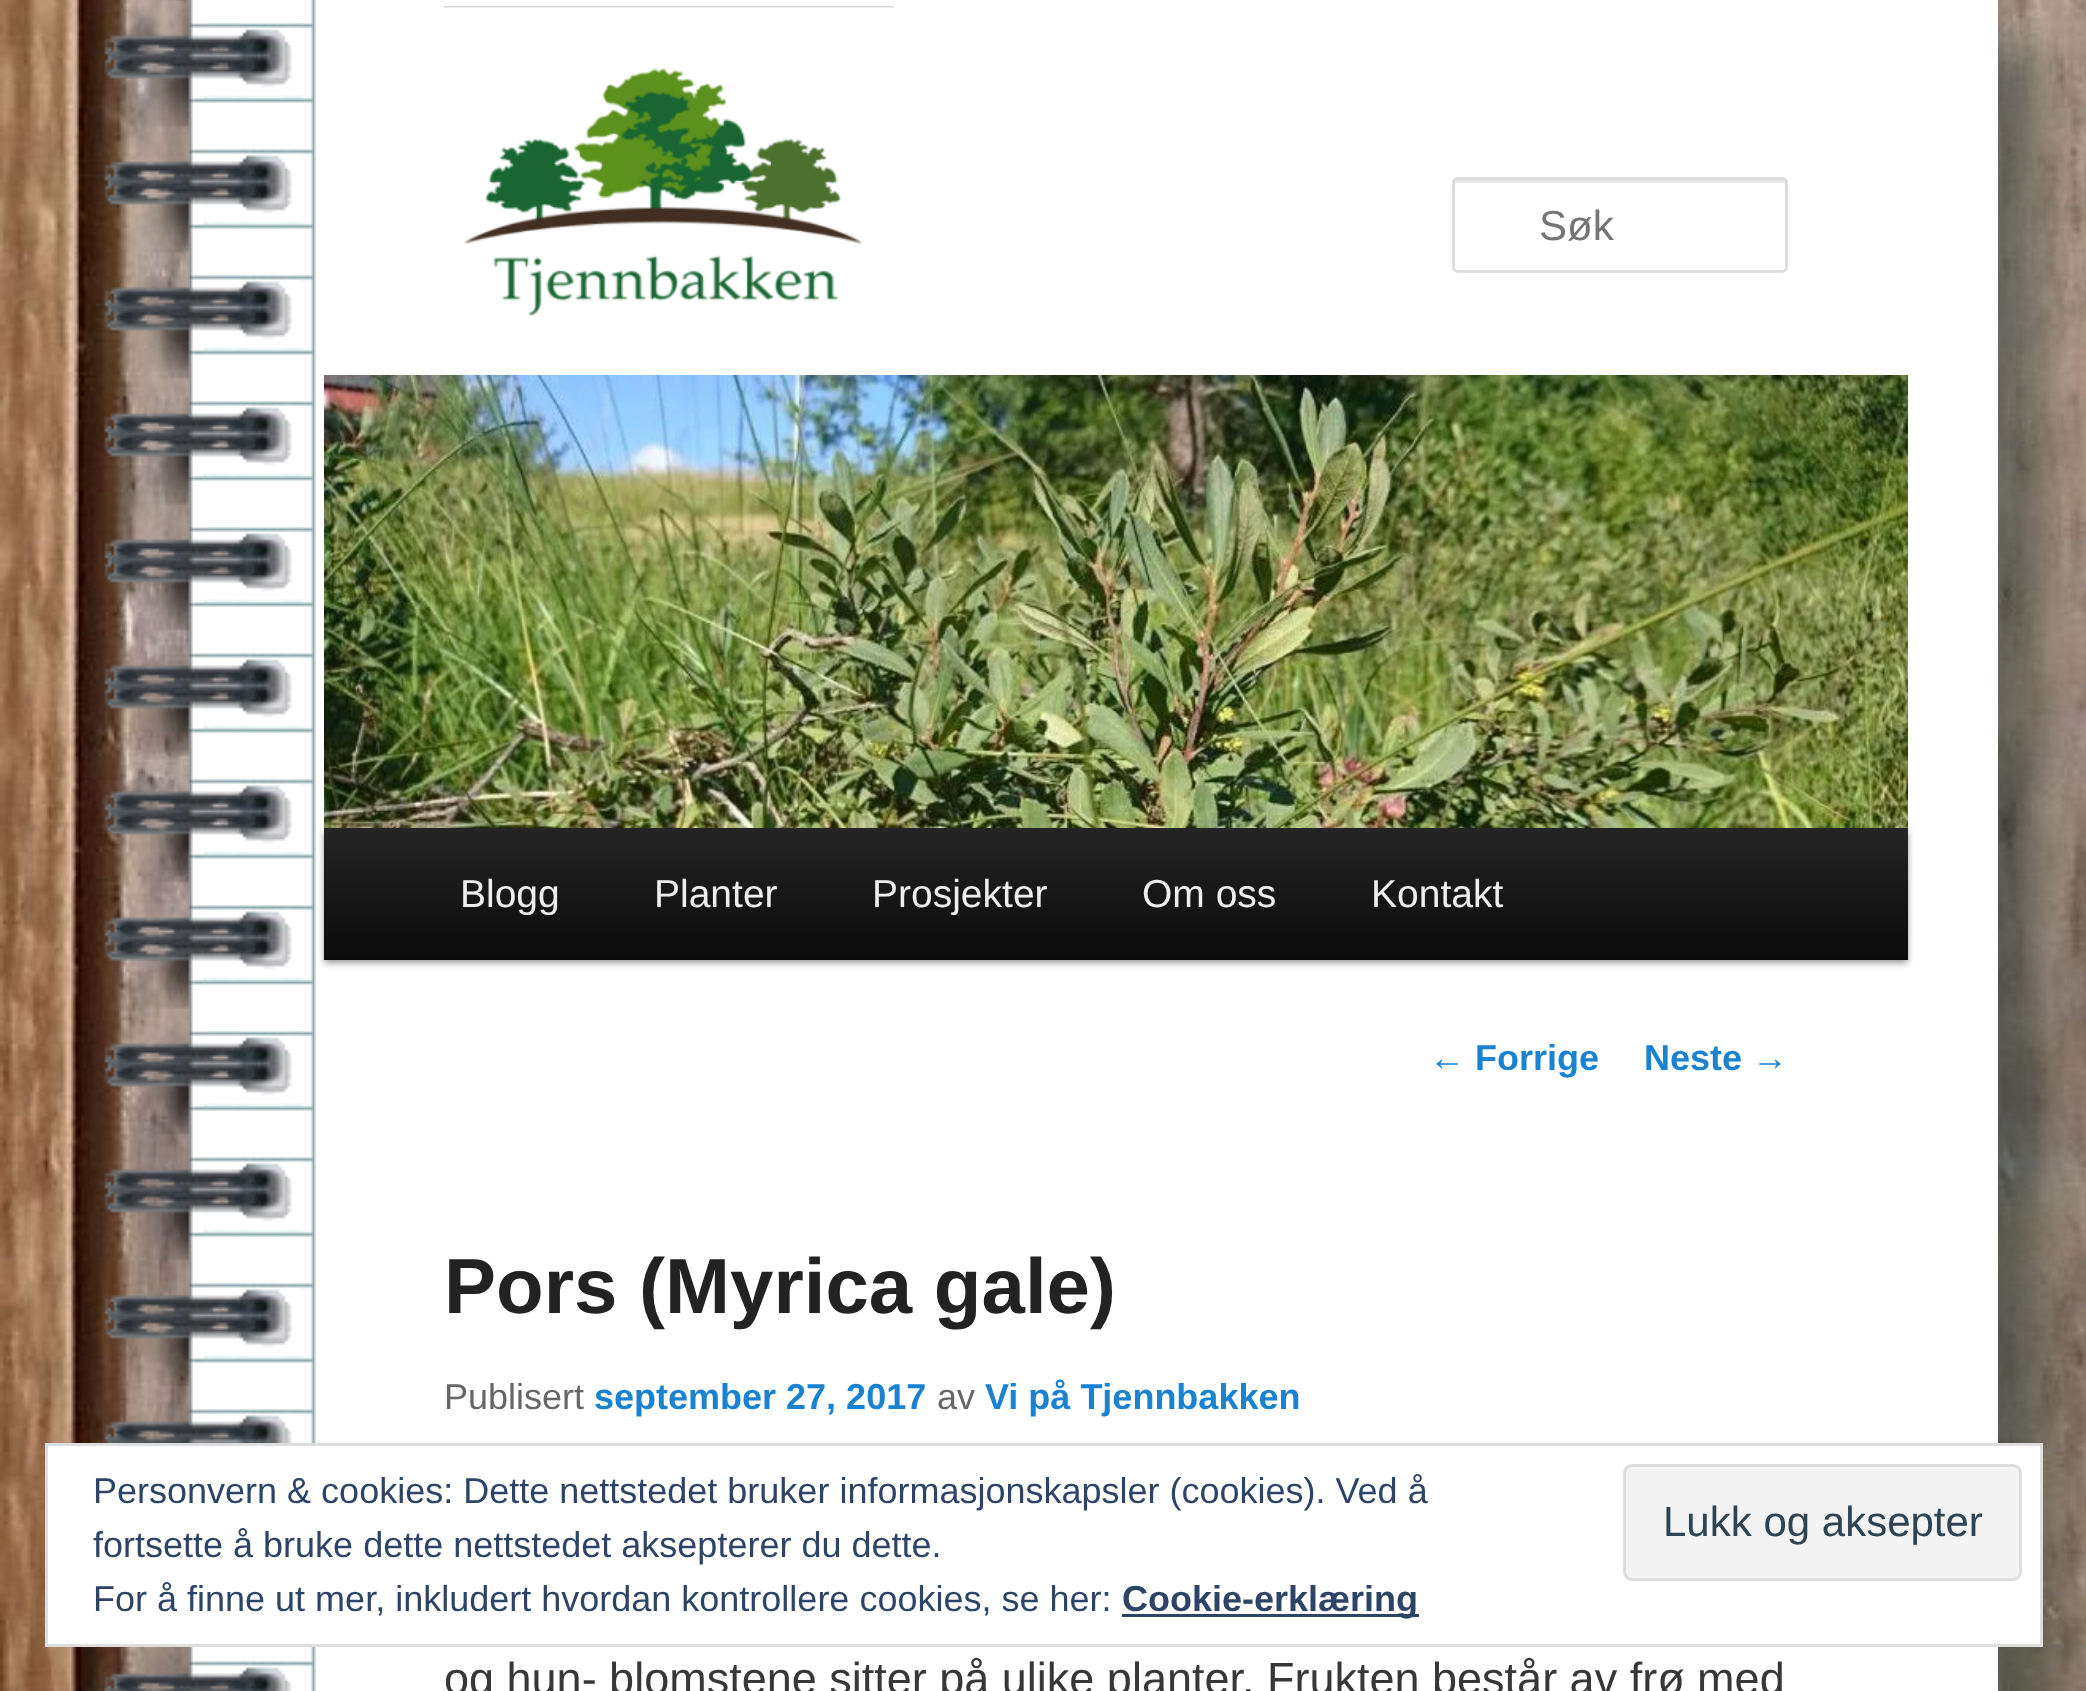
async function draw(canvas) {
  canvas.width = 2086
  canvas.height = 1691
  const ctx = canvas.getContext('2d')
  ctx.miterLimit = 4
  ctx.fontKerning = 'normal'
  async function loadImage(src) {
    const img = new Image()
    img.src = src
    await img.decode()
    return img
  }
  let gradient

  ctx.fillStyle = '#fff'
  ctx.fillRect(0, 0, 2086, 1691)
  ctx.drawImage(await loadImage('image0.png'), 0, 0, 2086, 1691)
  ctx.save()
  ctx.beginPath()
  ctx.rect(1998, 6, 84, 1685)
  ctx.clip()
  ctx.fillStyle = '#22323280'
  ctx.filter = 'blur(22.5px)'
  ctx.beginPath()
  ctx.rect(135, 45, 1908, 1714)
  ctx.fill()
  ctx.filter = 'none'
  ctx.restore()
  ctx.drawImage(await loadImage('image1.png'), 104, 0, 220, 1691)
  ctx.fillRect(1908, 0, 90, 1691)
  ctx.fillRect(324, 0, 1584, 375)
  ctx.drawImage(await loadImage('image2.png'), 444, 6, 450, 310)
  ctx.fillStyle = '#e6e6e6'
  ctx.beginPath()
  ctx.moveTo(1458, 183)
  ctx.lineTo(1782, 183)
  ctx.bezierCurveTo(1784, 183, 1785, 184, 1785, 186)
  ctx.lineTo(1785, 183)
  ctx.bezierCurveTo(1785, 181, 1784, 180, 1782, 180)
  ctx.lineTo(1458, 180)
  ctx.bezierCurveTo(1456, 180, 1455, 181, 1455, 183)
  ctx.lineTo(1455, 186)
  ctx.bezierCurveTo(1455, 184, 1456, 183, 1458, 183)
  ctx.closePath()
  ctx.fill()
  ctx.beginPath()
  ctx.roundRect(1453.5, 178.5, 333, 93, 4.5)
  ctx.strokeStyle = '#ddd'
  ctx.lineWidth = 3
  ctx.stroke()
  ctx.font = '42px Liberation Sans'
  ctx.fillStyle = '#757575'
  ctx.fillText('Søk', 1539, 240)
  ctx.fillStyle = '#fff'
  ctx.fillRect(324, 960, 1584, 731)
  ctx.fillStyle = '#00000066'
  ctx.filter = 'blur(3px)'
  ctx.beginPath()
  ctx.rect(324, 831, 1584, 132)
  ctx.fill()
  ctx.filter = 'none'
  ctx.drawImage(await loadImage('image3.png'), 324, 375, 1584, 453)
  gradient = ctx.createLinearGradient(1116, 828, 1116, 960)
  gradient.addColorStop(0, '#252525')
  gradient.addColorStop(1, '#0a0a0a')
  ctx.fillStyle = gradient
  ctx.fillRect(324, 828, 1584, 132)
  ctx.font = '39px Liberation Sans'
  ctx.fillStyle = '#eee'
  ctx.fillText('Blogg', 460, 907)
  ctx.fillText('Planter', 654, 907)
  ctx.fillText('Prosjekter', 872, 907)
  ctx.fillText('Om oss', 1142, 907)
  ctx.fillText('Kontakt', 1371, 907)
  ctx.font = '36px Liberation Sans'
  ctx.fillStyle = '#1982d1'
  ctx.fillText('←', 1429, 1070)
  ctx.font = 'bold 36px Liberation Sans'
  ctx.fillText('Forrige', 1475, 1070)
  ctx.fillText('Neste', 1644, 1070)
  ctx.font = '36px Liberation Sans'
  ctx.fillText('→', 1752, 1070)
  ctx.font = 'bold 78px Liberation Sans'
  ctx.fillStyle = '#222'
  ctx.fillText('Pors (Myrica gale)', 444, 1313)
  ctx.font = '36px Liberation Sans'
  ctx.fillStyle = '#666'
  ctx.fillText('Publisert', 444, 1409)
  ctx.font = 'bold 36px Liberation Sans'
  ctx.fillStyle = '#1982d1'
  ctx.fillText('september 27, 2017', 594, 1409)
  ctx.font = '36px Liberation Sans'
  ctx.fillStyle = '#666'
  ctx.fillText('av', 937, 1409)
  ctx.font = 'bold 36px Liberation Sans'
  ctx.fillStyle = '#1982d1'
  ctx.fillText('Vi på Tjennbakken', 985, 1409)
  ctx.font = '45px Liberation Sans'
  ctx.fillStyle = '#373737'
  ctx.fillText('og hun- blomstene sitter på ulike planter. Frukten består av frø med', 444, 1694)
  ctx.fillStyle = '#fff'
  ctx.beginPath()
  ctx.rect(46.5, 1444.5, 1995, 201)
  ctx.fill()
  ctx.strokeStyle = '#dedede'
  ctx.stroke()
  ctx.font = '36px Liberation Sans'
  ctx.fillStyle = '#2e4467'
  ctx.fillText('Personvern & cookies: Dette nettstedet bruker informasjonskapsler (cookies). Ved å', 93, 1503)
  ctx.fillText('fortsette å bruke dette nettstedet aksepterer du dette.', 93, 1557)
  ctx.fillStyle = '#f3f3f3'
  ctx.beginPath()
  ctx.roundRect(1624.5, 1465.5, 396, 114, 7.5)
  ctx.fill()
  ctx.stroke()
  ctx.font = '42px Liberation Sans'
  ctx.fillStyle = '#2e4453'
  ctx.fillText('Lukk og aksepter', 1663, 1536)
  ctx.font = '36px Liberation Sans'
  ctx.fillStyle = '#2e4467'
  ctx.fillText('For å finne ut mer, inkludert hvordan kontrollere cookies, se her:', 93, 1611)
  ctx.fillRect(1122, 1614, 297, 3)
  ctx.font = 'bold 36px Liberation Sans'
  ctx.fillText('Cookie-erklæring', 1122, 1611)
}

draw(document.querySelector('canvas'))
